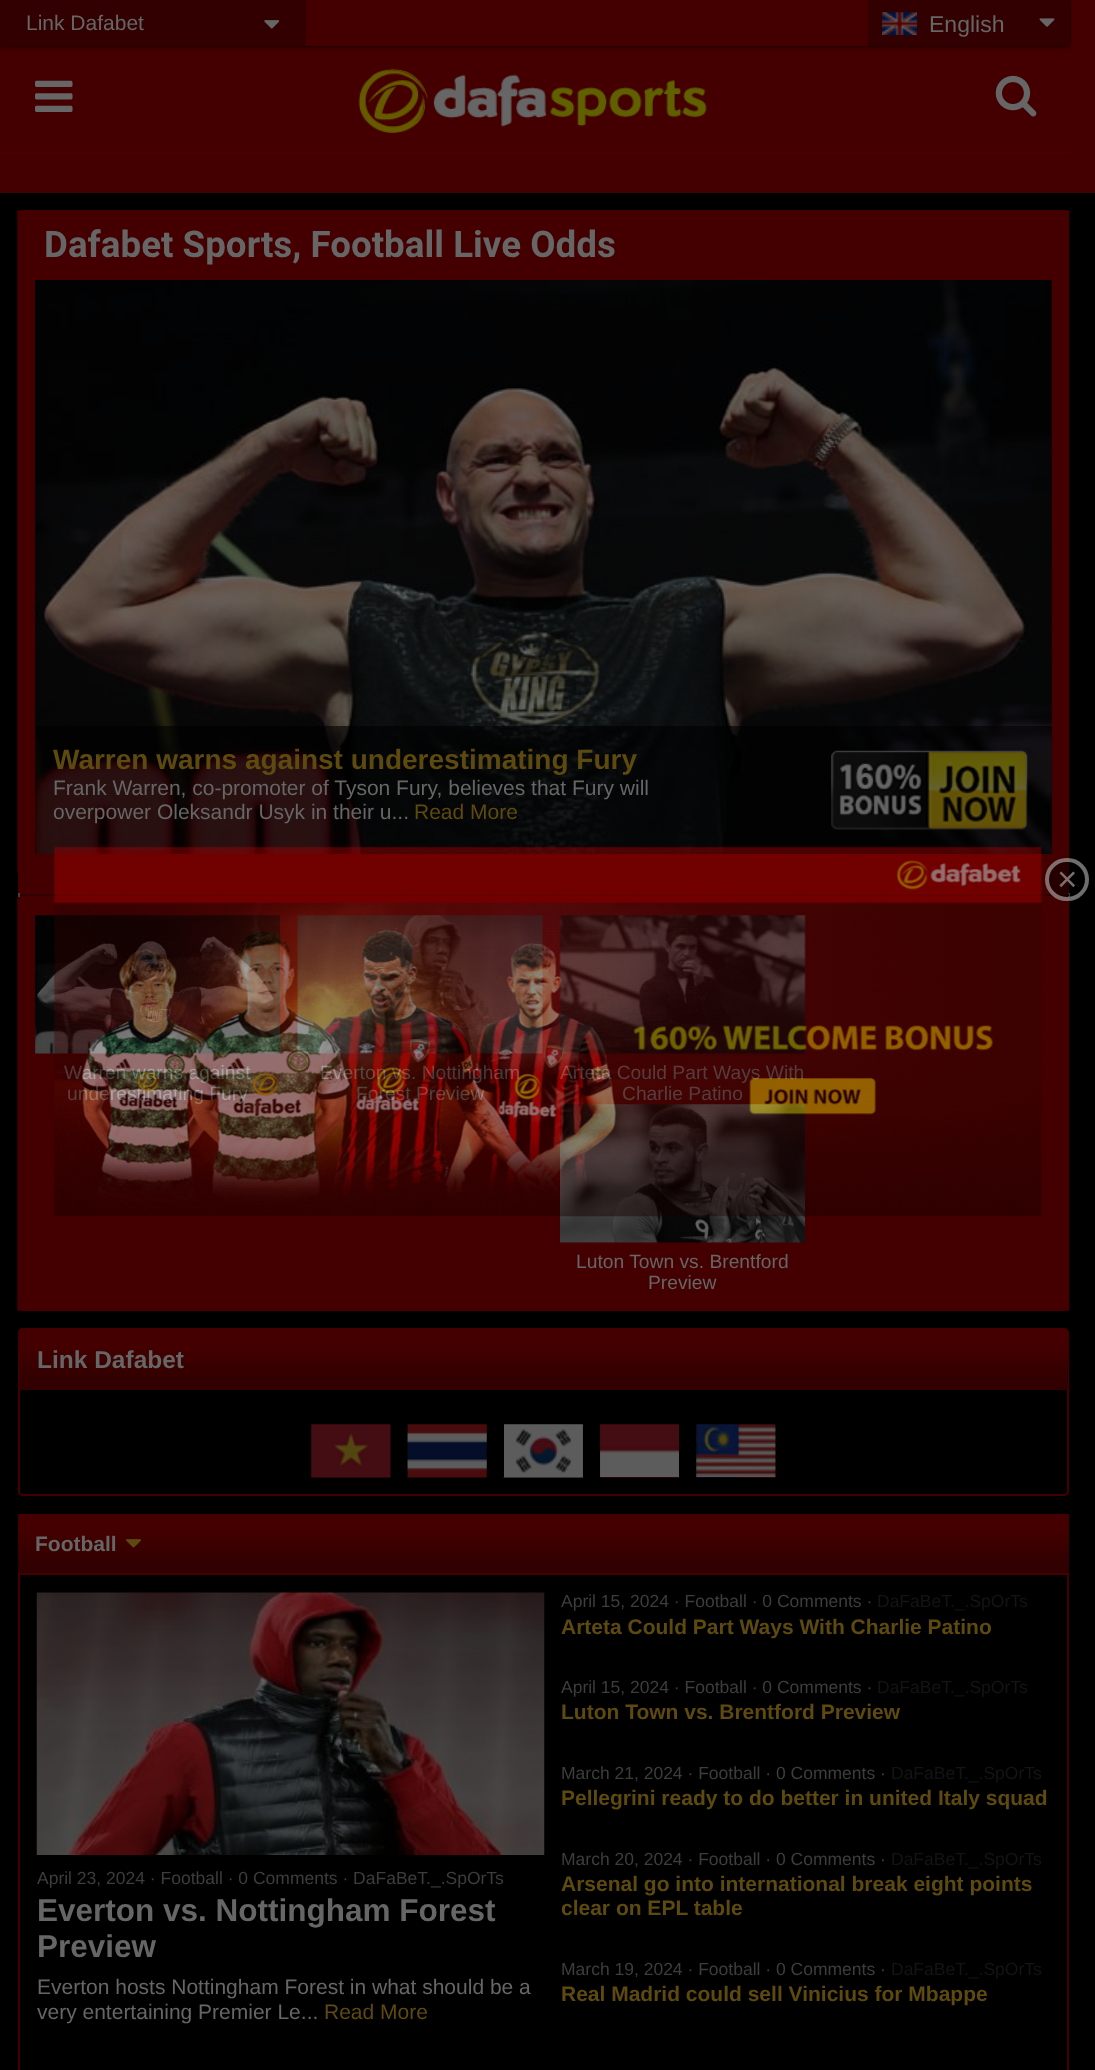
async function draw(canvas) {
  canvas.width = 1095
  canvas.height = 2070
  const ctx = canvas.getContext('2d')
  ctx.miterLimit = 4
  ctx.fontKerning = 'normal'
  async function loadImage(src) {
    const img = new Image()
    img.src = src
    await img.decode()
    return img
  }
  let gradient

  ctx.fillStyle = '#000'
  ctx.fillRect(0, 0, 1095, 2070)
  ctx.fillStyle = '#400'
  ctx.fillRect(0, 0, 1095, 193)
  ctx.save()
  ctx.beginPath()
  ctx.moveTo(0, 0)
  ctx.lineTo(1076, 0)
  ctx.lineTo(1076, 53)
  ctx.lineTo(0, 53)
  ctx.closePath()
  ctx.moveTo(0, 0)
  ctx.lineTo(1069, 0)
  ctx.lineTo(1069, 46)
  ctx.lineTo(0, 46)
  ctx.closePath()
  ctx.clip('evenodd')
  ctx.fillStyle = '#000'
  ctx.filter = 'blur(2px)'
  ctx.beginPath()
  ctx.rect(0, 0, 1069, 46)
  ctx.fill()
  ctx.filter = 'none'
  ctx.restore()
  ctx.fillStyle = '#320000'
  ctx.fillRect(0, 0, 306, 46)
  ctx.font = '21px Liberation Sans'
  ctx.fillStyle = '#666'
  ctx.fillText('Link Dafabet', 26, 30)
  ctx.drawImage(await loadImage('image0.png'), 264, 20, 16, 9)
  ctx.fillStyle = '#320000'
  ctx.fillRect(868, 0, 201, 46)
  ctx.drawImage(await loadImage('image1.png'), 882, 12, 35, 23)
  ctx.font = '23px Liberation Sans'
  ctx.fillStyle = '#666'
  ctx.fillText('English', 929, 32)
  ctx.drawImage(await loadImage('image2.png'), 1039, 18, 16, 9)
  ctx.fillStyle = '#4a0001'
  ctx.fillRect(0, 152, 1069, 2)
  ctx.drawImage(await loadImage('image3.png'), 35, 80, 38, 32)
  ctx.drawImage(await loadImage('image4.png'), 358, 68, 349, 65)
  ctx.drawImage(await loadImage('image5.png'), 995, 75, 42, 42)
  ctx.fillStyle = '#400'
  ctx.beginPath()
  ctx.roundRect(18, 210, 1051, 662, [7, 7, 0, 0])
  ctx.fill()
  ctx.beginPath()
  ctx.moveTo(26, 219)
  ctx.lineTo(1060.5, 219)
  ctx.lineTo(1060.5, 863)
  ctx.lineTo(26, 863)
  ctx.closePath()
  ctx.strokeStyle = '#400'
  ctx.lineWidth = 17.5
  ctx.stroke()
  ctx.font = 'bold 36.75px Roboto'
  ctx.fillStyle = '#666'
  ctx.fillText('Dafabet Sports, Football Live Odds', 44, 257)
  ctx.drawImage(await loadImage('image6.png'), 35, 280, 1017, 574)
  ctx.fillStyle = '#00000099'
  ctx.fillRect(35, 726, 1017, 128)
  ctx.font = 'bold 28px Liberation Sans'
  ctx.fillStyle = '#5e4a0e'
  ctx.fillText('Warren warns against underestimating Fury', 53, 769)
  ctx.font = '21px Liberation Sans'
  ctx.fillStyle = '#666'
  ctx.fillText('Frank Warren, co-promoter of Tyson Fury, believes that Fury will', 53, 795)
  ctx.fillText('overpower Oleksandr Usyk in their u...', 53, 819)
  ctx.fillStyle = '#5e4a0e'
  ctx.fillText('Read More', 414, 819)
  ctx.drawImage(await loadImage('image7.png'), 831, 750, 197, 80)
  ctx.fillStyle = '#400'
  ctx.fillRect(18, 872, 1051, 26)
  ctx.fillStyle = '#4a0001'
  ctx.fillRect(18, 893, 1051, 1)
  ctx.fillStyle = '#5f5f5f'
  ctx.fillRect(1068, 893, 2, 4)
  ctx.fillStyle = '#320000'
  ctx.fillRect(18, 894, 1051, 2)
  ctx.fillStyle = '#404040'
  ctx.fillRect(18, 893, 2, 4)
  ctx.fillStyle = '#400'
  ctx.beginPath()
  ctx.roundRect(18, 898, 1051, 413, [0, 0, 7, 7])
  ctx.fill()
  ctx.beginPath()
  ctx.moveTo(26, 906.5)
  ctx.lineTo(1060.5, 906.5)
  ctx.lineTo(1060.5, 1302)
  ctx.lineTo(26, 1302)
  ctx.closePath()
  ctx.stroke()
  ctx.drawImage(await loadImage('image8.png'), 35, 915, 245, 139)
  ctx.font = '19.25px Liberation Sans'
  ctx.fillStyle = '#666'
  ctx.fillText('Warren warns against', 64, 1079)
  ctx.fillText('underestimating Fury', 67, 1100)
  ctx.drawImage(await loadImage('image9.png'), 297, 915, 246, 140)
  ctx.fillText('Everton vs. Nottingham', 320, 1079)
  ctx.fillText('Forest Preview', 356, 1100)
  ctx.drawImage(await loadImage('image10.png'), 559, 915, 247, 140)
  ctx.fillText('Arteta Could Part Ways With', 560, 1079)
  ctx.fillText('Charlie Patino', 622, 1100)
  ctx.drawImage(await loadImage('image11.png'), 560, 1104, 245, 140)
  ctx.fillText('Luton Town vs. Brentford', 576, 1268)
  ctx.fillText('Preview', 648, 1289)
  ctx.beginPath()
  ctx.roundRect(19, 1329, 1049, 166, 4)
  ctx.lineWidth = 2
  ctx.stroke()
  gradient = ctx.createLinearGradient(19, 1390, 19, 1330)
  gradient.addColorStop(0.2, '#320000')
  gradient.addColorStop(0.72, '#400')
  ctx.fillStyle = gradient
  ctx.fillRect(19, 1330, 1049, 60)
  ctx.font = 'bold 24.5px Liberation Sans'
  ctx.fillStyle = '#666'
  ctx.fillText('Link Dafabet', 37, 1368)
  ctx.drawImage(await loadImage('image12.png'), 311, 1424, 80, 53)
  ctx.drawImage(await loadImage('image14.png'), 311, 1476, 80, 2)
  ctx.drawImage(await loadImage('image13.png'), 311, 1424, 80, 53)
  ctx.drawImage(await loadImage('image15.png'), 407, 1424, 80, 53)
  ctx.drawImage(await loadImage('image17.png'), 407, 1476, 80, 2)
  ctx.drawImage(await loadImage('image16.png'), 407, 1424, 80, 53)
  ctx.drawImage(await loadImage('image18.png'), 504, 1424, 79, 53)
  ctx.drawImage(await loadImage('image20.png'), 503, 1476, 81, 2)
  ctx.drawImage(await loadImage('image19.png'), 504, 1424, 79, 53)
  ctx.drawImage(await loadImage('image21.png'), 600, 1424, 79, 53)
  ctx.drawImage(await loadImage('image23.png'), 599, 1476, 81, 2)
  ctx.drawImage(await loadImage('image22.png'), 600, 1424, 79, 53)
  ctx.drawImage(await loadImage('image24.png'), 696, 1424, 80, 53)
  ctx.drawImage(await loadImage('image26.png'), 696, 1476, 80, 2)
  ctx.drawImage(await loadImage('image25.png'), 696, 1424, 80, 53)
  gradient = ctx.createLinearGradient(18, 1573, 18, 1514)
  gradient.addColorStop(0.2, '#320000')
  gradient.addColorStop(0.72, '#400')
  ctx.fillStyle = gradient
  ctx.fillRect(18, 1514, 1051, 59)
  ctx.font = 'bold 21px Liberation Sans'
  ctx.fillStyle = '#666'
  ctx.fillText('Football', 35, 1551)
  ctx.drawImage(await loadImage('image27.png'), 126, 1539, 15, 9)
  ctx.strokeRect(19, 1574, 1049, 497)
  ctx.drawImage(await loadImage('image28.png'), 36, 1592, 509, 263)
  ctx.font = '17.5px Liberation Sans'
  ctx.fillStyle = '#3d3d3d'
  ctx.fillText('April 23, 2024 · Football · 0 Comments · DaFaBeT._.SpOrTs', 37, 1884)
  ctx.font = 'bold 31.5px Liberation Sans'
  ctx.fillStyle = '#666'
  ctx.fillText('Everton vs. Nottingham Forest', 37, 1921)
  ctx.fillText('Preview', 37, 1957)
  ctx.font = '21px Liberation Sans'
  ctx.fillText('Everton hosts Nottingham Forest in what should be a', 37, 1994)
  ctx.fillText('very entertaining Premier Le...', 37, 2019)
  ctx.fillStyle = '#5e4a0e'
  ctx.fillText('Read More', 324, 2019)
  ctx.font = '17.5px Liberation Sans'
  ctx.fillStyle = '#3d3d3d'
  ctx.fillText('April 15, 2024 · Football · 0 Comments ·', 561, 1607)
  ctx.fillStyle = '#141414'
  ctx.fillText('DaFaBeT._.SpOrTs', 877, 1607)
  ctx.font = 'bold 21px Liberation Sans'
  ctx.fillStyle = '#5e4a0e'
  ctx.fillText('Arteta Could Part Ways With Charlie Patino', 561, 1634)
  ctx.font = '17.5px Liberation Sans'
  ctx.fillStyle = '#3d3d3d'
  ctx.fillText('April 15, 2024 · Football · 0 Comments ·', 561, 1693)
  ctx.fillStyle = '#141414'
  ctx.fillText('DaFaBeT._.SpOrTs', 877, 1693)
  ctx.font = 'bold 21px Liberation Sans'
  ctx.fillStyle = '#5e4a0e'
  ctx.fillText('Luton Town vs. Brentford Preview', 561, 1719)
  ctx.font = '17.5px Liberation Sans'
  ctx.fillStyle = '#3d3d3d'
  ctx.fillText('March 21, 2024 · Football · 0 Comments ·', 561, 1779)
  ctx.fillStyle = '#141414'
  ctx.fillText('DaFaBeT._.SpOrTs', 891, 1779)
  ctx.font = 'bold 21px Liberation Sans'
  ctx.fillStyle = '#5e4a0e'
  ctx.fillText('Pellegrini ready to do better in united Italy squad', 561, 1805)
  ctx.font = '17.5px Liberation Sans'
  ctx.fillStyle = '#3d3d3d'
  ctx.fillText('March 20, 2024 · Football · 0 Comments ·', 561, 1865)
  ctx.fillStyle = '#141414'
  ctx.fillText('DaFaBeT._.SpOrTs', 891, 1865)
  ctx.font = 'bold 21px Liberation Sans'
  ctx.fillStyle = '#5e4a0e'
  ctx.fillText('Arsenal go into international break eight points', 561, 1891)
  ctx.fillText('clear on EPL table', 561, 1915)
  ctx.font = '17.5px Liberation Sans'
  ctx.fillStyle = '#3d3d3d'
  ctx.fillText('March 19, 2024 · Football · 0 Comments ·', 561, 1975)
  ctx.fillStyle = '#141414'
  ctx.fillText('DaFaBeT._.SpOrTs', 891, 1975)
  ctx.font = 'bold 21px Liberation Sans'
  ctx.fillStyle = '#5e4a0e'
  ctx.fillText('Real Madrid could sell Vinicius for Mbappe', 561, 2001)
  ctx.drawImage(await loadImage('image29.png'), 53, 846, 989, 371)
  ctx.fillStyle = '#0000006e'
  ctx.beginPath()
  ctx.roundRect(1045, 858, 44, 43, 21.5)
  ctx.fill()
  ctx.beginPath()
  ctx.roundRect(1047, 860, 40, 39, 19.5)
  ctx.strokeStyle = '#ffffff6e'
  ctx.lineWidth = 4
  ctx.stroke()
  ctx.font = '35px Liberation Sans'
  ctx.fillStyle = '#7c6e6e'
  ctx.fillText('×', 1057, 891)
}

draw(document.querySelector('canvas'))
